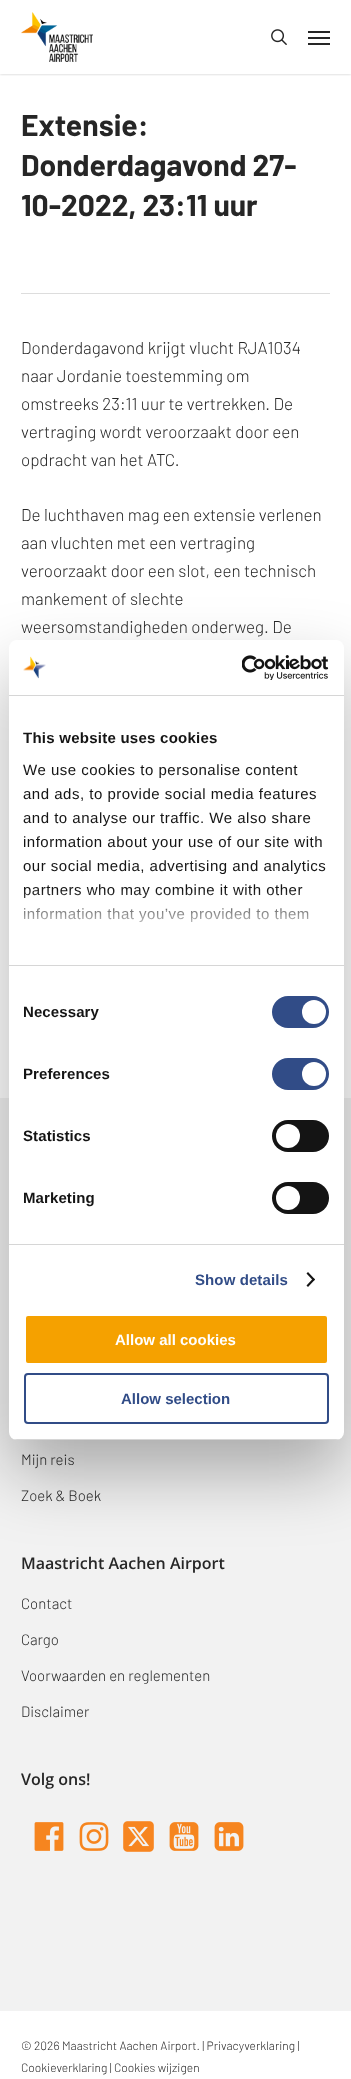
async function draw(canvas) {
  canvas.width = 351
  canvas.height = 2079
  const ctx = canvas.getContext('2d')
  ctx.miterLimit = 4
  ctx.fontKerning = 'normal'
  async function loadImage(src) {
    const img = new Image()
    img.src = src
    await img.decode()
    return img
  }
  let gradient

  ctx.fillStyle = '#fff'
  ctx.fillRect(0, 0, 351, 2079)
  ctx.save()
  ctx.beginPath()
  ctx.rect(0, 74, 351, 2)
  ctx.clip()
  ctx.fillStyle = '#00000038'
  ctx.filter = 'blur(1.5px)'
  ctx.beginPath()
  ctx.rect(0, 0, 351, 74)
  ctx.fill()
  ctx.filter = 'none'
  ctx.restore()
  ctx.drawImage(await loadImage('image0.png'), 21, 12, 72, 50)
  ctx.drawImage(await loadImage('image1.png'), 271, 29, 16, 16)
  ctx.fillStyle = '#262626'
  ctx.fillRect(308, 31, 22, 2)
  ctx.fillRect(308, 43, 22, 2)
  ctx.fillRect(308, 37, 22, 2)
  ctx.fillStyle = '#ddd'
  ctx.fillRect(21, 293, 309, 1)
  ctx.font = 'bold 30px Barlow'
  ctx.fillStyle = '#262626'
  ctx.fillText('Extensie:', 21, 136)
  ctx.fillText('Donderdagavond 27-', 21, 176)
  ctx.fillText('10-2022, 23:11 uur', 21, 216)
  ctx.font = '300 17px Barlow'
  ctx.fillText('Donderdagavond krijgt vlucht RJA1034', 21, 354)
  ctx.fillText('naar Jordanie toestemming om', 21, 382)
  ctx.fillText('omstreeks 23:11 uur te vertrekken. De', 21, 410)
  ctx.fillText('vertraging wordt veroorzaakt door een', 21, 438)
  ctx.fillText('opdracht van het ATC.', 21, 466)
  ctx.fillText('De luchthaven mag een extensie verlenen', 21, 521)
  ctx.fillText('aan vluchten met een vertraging', 21, 549)
  ctx.fillText('veroorzaakt door een slot, een technisch', 21, 577)
  ctx.fillText('mankement of slechte', 21, 605)
  ctx.fillText('weersomstandigheden onderweg. De', 21, 633)
  ctx.fillStyle = '#f2f2f2'
  ctx.fillRect(0, 1098, 351, 913)
  ctx.font = '300 15px Barlow'
  ctx.fillStyle = '#262626'
  ctx.fillText('Mijn reis', 21, 1465)
  ctx.fillText('Zoek & Boek', 21, 1501)
  ctx.font = '600 16px Open Sans'
  ctx.fillText('Maastricht Aachen Airport', 21, 1569)
  ctx.font = '300 15px Barlow'
  ctx.fillText('Contact', 21, 1609)
  ctx.fillText('Cargo', 21, 1645)
  ctx.fillText('Voorwaarden en reglementen', 21, 1681)
  ctx.fillText('Disclaimer', 21, 1717)
  ctx.font = '600 16px Open Sans'
  ctx.fillText('Volg ons!', 21, 1785)
  ctx.drawImage(await loadImage('image2.png'), 34, 1822, 30, 29)
  ctx.drawImage(await loadImage('image3.png'), 79, 1822, 30, 29)
  ctx.drawImage(await loadImage('image4.png'), 123, 1821, 31, 31)
  ctx.drawImage(await loadImage('image5.png'), 169, 1822, 30, 29)
  ctx.drawImage(await loadImage('image6.png'), 214, 1822, 30, 29)
  ctx.font = '300 12px Barlow'
  ctx.fillText('© 2026 Maastricht Aachen Airport. | Privacyverklaring |', 21, 2050)
  ctx.fillText('Cookieverklaring | Cookies wijzigen', 21, 2072)
  ctx.fillStyle = '#0000004d'
  ctx.filter = 'blur(34px)'
  ctx.beginPath()
  ctx.roundRect(9, 672, 335, 800, 8)
  ctx.fill()
  ctx.filter = 'none'
  ctx.fillStyle = '#fff'
  ctx.beginPath()
  ctx.roundRect(9, 640, 335, 800, 8)
  ctx.fill()
  ctx.fillStyle = '#d6d6d6'
  ctx.fillRect(9, 695, 335, 1)
  ctx.drawImage(await loadImage('image7.png'), 23, 656, 23, 23)
  ctx.drawImage(await loadImage('image8.png'), 242, 655, 87, 25)
  ctx.fillRect(9, 965, 335, 1)
  ctx.letterSpacing = '0.25px'
  ctx.font = 'bold 15px Liberation Sans'
  ctx.fillStyle = '#141414'
  ctx.fillText('This website uses cookies', 23, 743)
  ctx.letterSpacing = '0.5px'
  ctx.font = '15px Liberation Sans'
  ctx.fillText('We use cookies to personalise content', 23, 775)
  ctx.fillText('and ads, to provide social media features', 23, 799)
  ctx.fillText('and to analyse our traffic. We also share', 23, 823)
  ctx.fillText('information about your use of our site with', 23, 847)
  ctx.fillText('our social media, advertising and analytics', 23, 871)
  ctx.fillText('partners who may combine it with other', 23, 895)
  ctx.fillText('information that you’ve provided to them', 23, 919)
  gradient = ctx.createLinearGradient(170, 965, 170, 890)
  gradient.addColorStop(0, '#fff')
  gradient.addColorStop(0.5, '#ffffffcc')
  gradient.addColorStop(1, '#ffffff00')
  ctx.fillStyle = gradient
  ctx.fillRect(24, 891, 285, 32)
  ctx.fillStyle = '#d6d6d6'
  ctx.fillRect(9, 1244, 335, 1)
  ctx.letterSpacing = '0.1px'
  ctx.font = 'bold 15px Liberation Sans'
  ctx.fillStyle = '#141414'
  ctx.fillText('Necessary', 23, 1017)
  ctx.fillStyle = '#314c87'
  ctx.beginPath()
  ctx.roundRect(272, 996, 57, 32, 16)
  ctx.fill()
  ctx.fillStyle = '#fff'
  ctx.beginPath()
  ctx.arc(314, 1012, 12, 0, 2 * Math.PI)
  ctx.fill()
  ctx.fillStyle = '#141414'
  ctx.fillText('Preferences', 23, 1079)
  ctx.fillStyle = '#314c87'
  ctx.beginPath()
  ctx.roundRect(272, 1058, 57, 32, 16)
  ctx.fill()
  ctx.fillStyle = '#fff'
  ctx.beginPath()
  ctx.arc(314, 1074, 12, 0, 2 * Math.PI)
  ctx.fill()
  ctx.fillStyle = '#141414'
  ctx.fillText('Statistics', 23, 1141)
  ctx.beginPath()
  ctx.roundRect(272, 1120, 57, 32, 16)
  ctx.fill()
  ctx.fillStyle = '#fff'
  ctx.beginPath()
  ctx.arc(288, 1136, 12, 0, 2 * Math.PI)
  ctx.fill()
  ctx.fillStyle = '#141414'
  ctx.fillText('Marketing', 23, 1203)
  ctx.beginPath()
  ctx.roundRect(272, 1182, 57, 32, 16)
  ctx.fill()
  ctx.fillStyle = '#fff'
  ctx.beginPath()
  ctx.arc(288, 1198, 12, 0, 2 * Math.PI)
  ctx.fill()
  ctx.fillStyle = '#314c87'
  ctx.fillText('Show details', 195, 1285)
  ctx.fillStyle = '#141414'
  ctx.beginPath()
  ctx.moveTo(308, 1272)
  ctx.lineTo(315, 1279.5)
  ctx.lineTo(313.5, 1281)
  ctx.lineTo(306.5, 1273.5)
  ctx.closePath()
  ctx.fill()
  ctx.beginPath()
  ctx.moveTo(313.5, 1278)
  ctx.lineTo(315, 1279.5)
  ctx.lineTo(308, 1287)
  ctx.lineTo(306.5, 1285.5)
  ctx.closePath()
  ctx.fill()
  ctx.save()
  ctx.beginPath()
  ctx.roundRect(9, 640, 335, 800, 8)
  ctx.clip()
  ctx.fillStyle = '#d6d6d6'
  ctx.fillRect(9, 1439, 335, 1)
  ctx.restore()
  ctx.fillStyle = '#f5a100'
  ctx.beginPath()
  ctx.roundRect(25, 1315, 303, 49, 3)
  ctx.fill()
  ctx.strokeStyle = '#fff'
  ctx.lineWidth = 2
  ctx.stroke()
  ctx.letterSpacing = '0px'
  ctx.fillStyle = '#fff'
  ctx.fillText('Allow all cookies', 115, 1345)
  ctx.beginPath()
  ctx.roundRect(25, 1374, 303, 49, 3)
  ctx.strokeStyle = '#314c87'
  ctx.stroke()
  ctx.fillStyle = '#314c87'
  ctx.fillText('Allow selection', 121, 1404)
}

draw(document.querySelector('canvas'))
